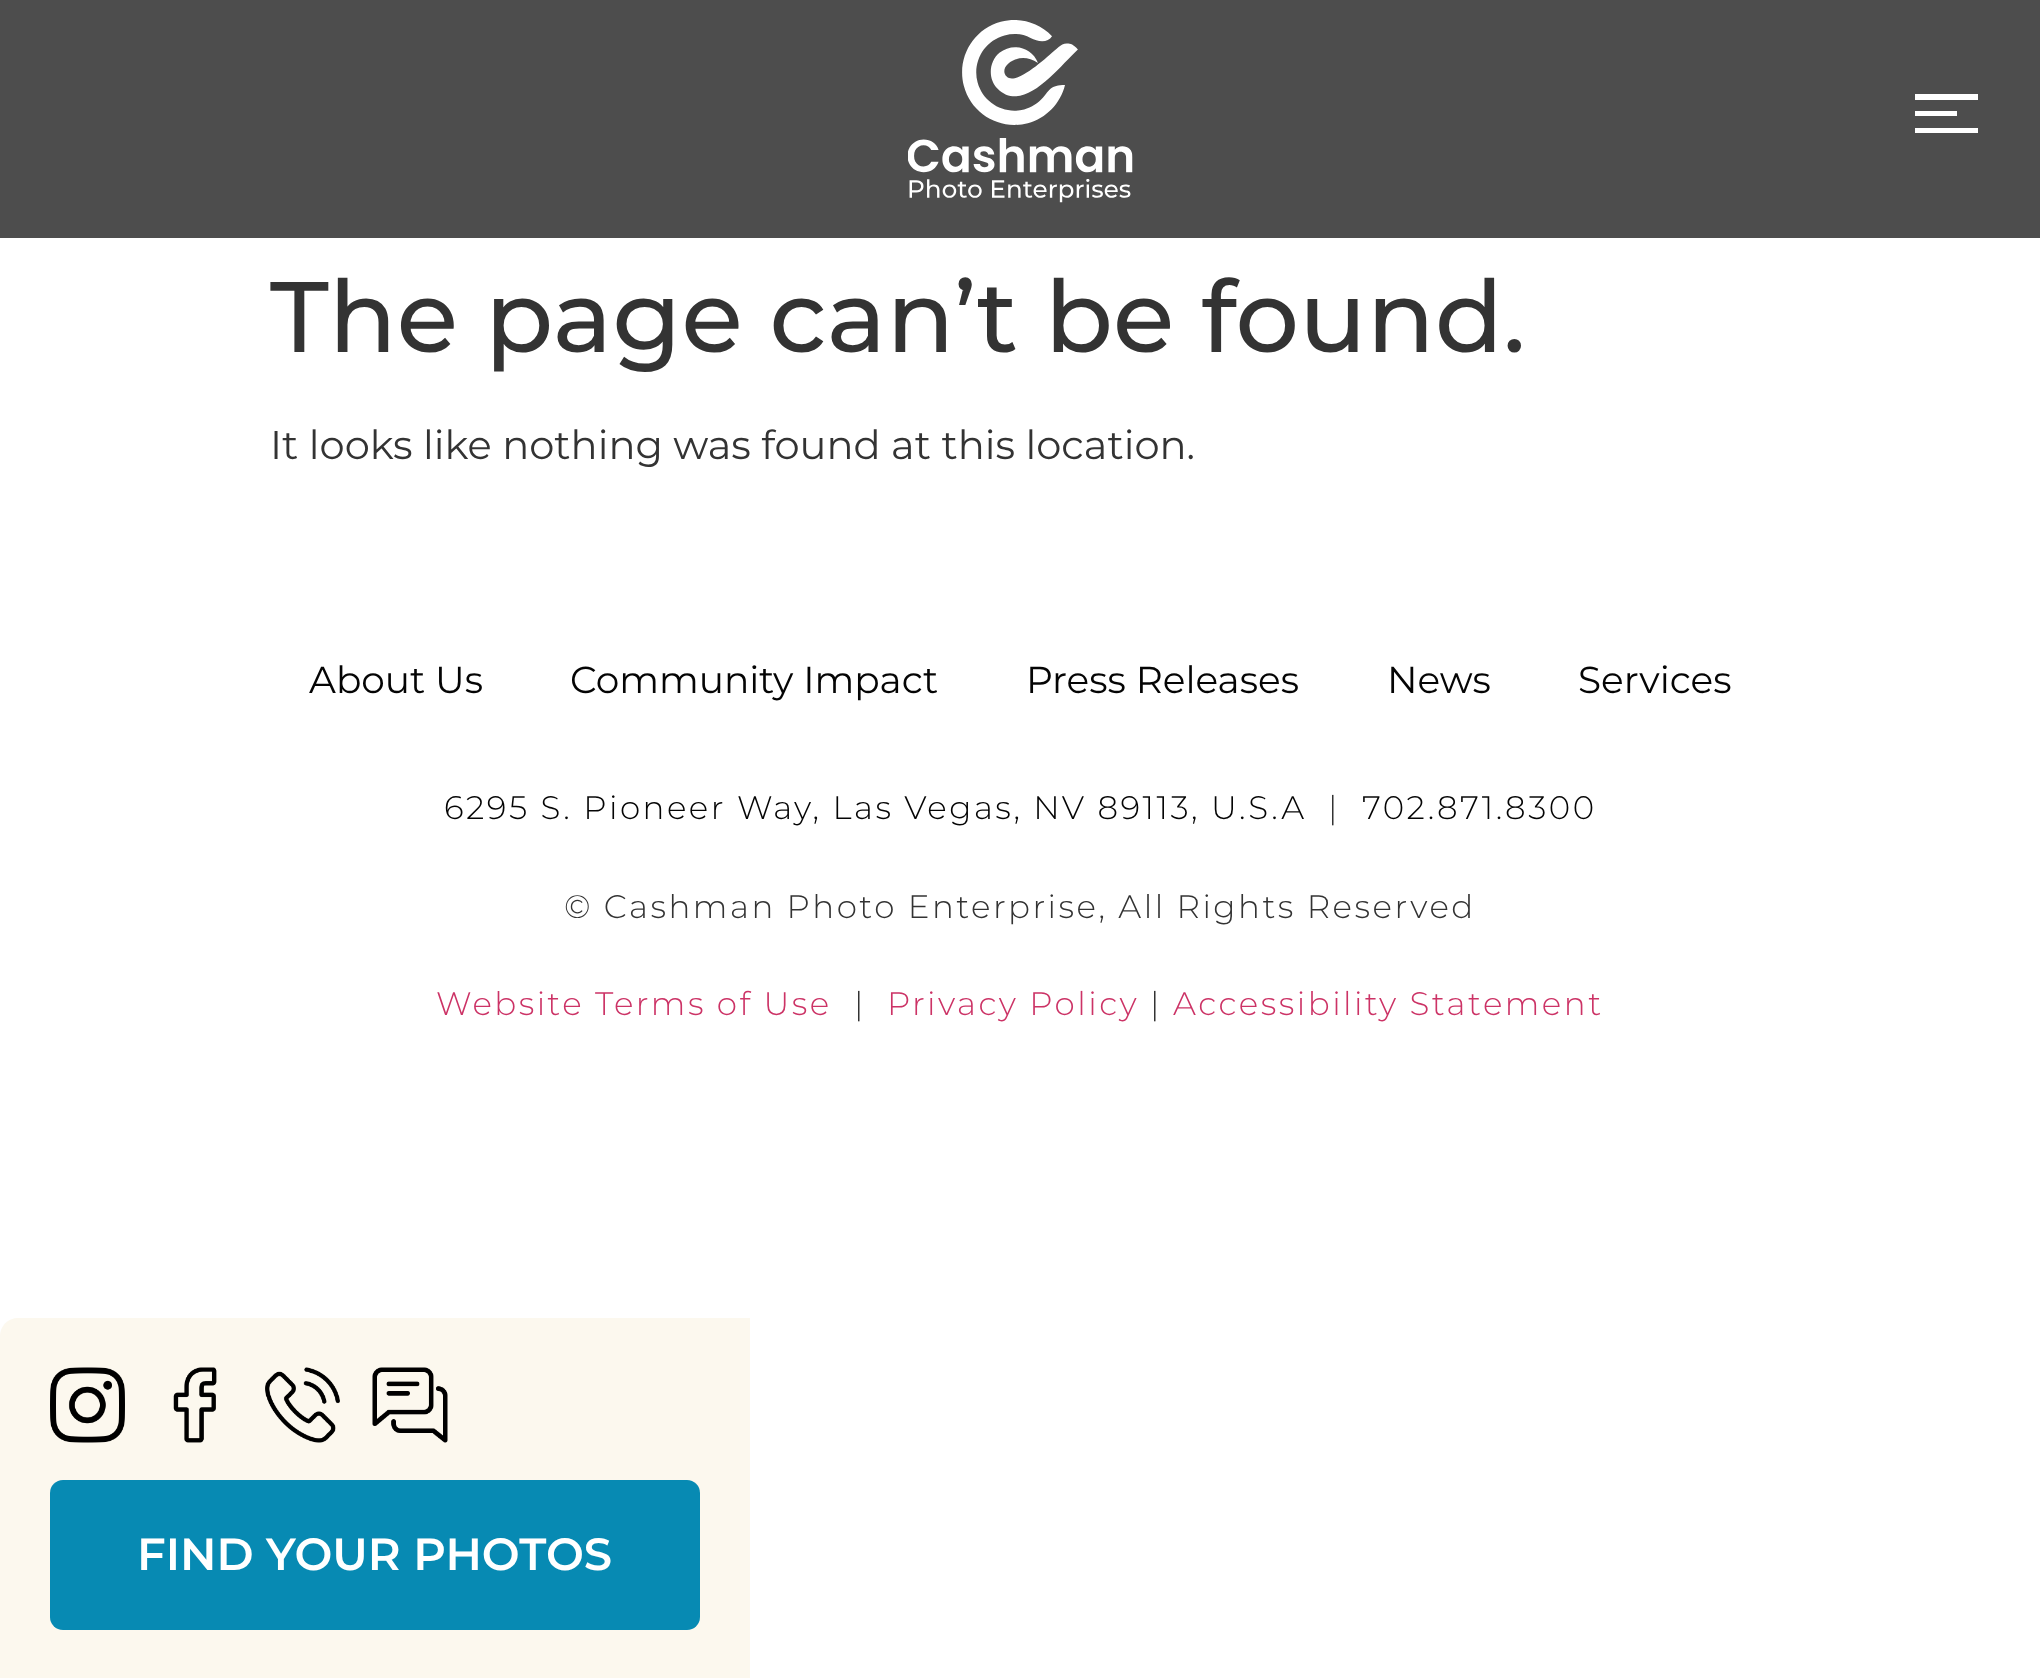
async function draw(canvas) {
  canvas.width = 2040
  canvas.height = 1678
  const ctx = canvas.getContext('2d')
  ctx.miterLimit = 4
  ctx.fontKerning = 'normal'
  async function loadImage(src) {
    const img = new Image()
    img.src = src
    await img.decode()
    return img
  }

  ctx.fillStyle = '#fff'
  ctx.fillRect(0, 0, 2040, 1678)
  ctx.fillStyle = '#4d4d4d'
  ctx.fillRect(0, 0, 2040, 238)
  ctx.drawImage(await loadImage('image0.png'), 908, 20, 225, 183)
  ctx.fillStyle = '#fff'
  ctx.fillRect(1915, 94, 63, 6)
  ctx.fillRect(1915, 111, 42, 5)
  ctx.fillRect(1915, 128, 63, 5)
  ctx.font = '500 100px Montserrat'
  ctx.fillStyle = '#333'
  ctx.fillText('The page can’t be found.', 270, 352)
  ctx.font = '40px Montserrat'
  ctx.fillText('It looks like nothing was found at this location.', 270, 459)
  ctx.font = '37.5px Montserrat'
  ctx.fillStyle = '#040404'
  ctx.fillText('About Us', 309, 693)
  ctx.fillText('Community Impact', 570, 693)
  ctx.fillText('Press Releases', 1026, 693)
  ctx.fillText('News', 1387, 693)
  ctx.fillText('Services', 1578, 693)
  ctx.letterSpacing = '2.5px'
  ctx.font = '300 32.5px Montserrat'
  ctx.fillText('6295 S. Pioneer Way, Las Vegas, NV 89113, U.S.A', 444, 819)
  ctx.fillStyle = '#333'
  ctx.fillText('|', 1328, 819)
  ctx.fillStyle = '#040404'
  ctx.fillText('702.871.8300', 1362, 819)
  ctx.fillStyle = '#333'
  ctx.fillText('© Cashman Photo Enterprise, All Rights Reserved', 564, 918)
  ctx.fillStyle = '#c36'
  ctx.fillText('Website Terms of Use', 436, 1015)
  ctx.fillStyle = '#333'
  ctx.fillText('|', 854, 1015)
  ctx.fillStyle = '#c36'
  ctx.fillText('Privacy Policy', 887, 1015)
  ctx.fillStyle = '#333'
  ctx.fillText('|', 1150, 1015)
  ctx.fillStyle = '#c36'
  ctx.fillText('Accessibility Statement', 1173, 1015)
  ctx.fillStyle = '#fcf8ee'
  ctx.beginPath()
  ctx.moveTo(18, 1318)
  ctx.lineTo(750, 1318)
  ctx.lineTo(750, 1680)
  ctx.lineTo(0, 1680)
  ctx.lineTo(0, 1336)
  ctx.bezierCurveTo(0, 1326, 8, 1318, 18, 1318)
  ctx.closePath()
  ctx.fill()
  ctx.drawImage(await loadImage('image1.png'), 50, 1367, 75, 76)
  ctx.drawImage(await loadImage('image2.png'), 173, 1367, 44, 76)
  ctx.drawImage(await loadImage('image3.png'), 265, 1367, 75, 76)
  ctx.drawImage(await loadImage('image4.png'), 372, 1367, 76, 76)
  ctx.fillStyle = '#078ab3'
  ctx.beginPath()
  ctx.roundRect(50, 1480, 650, 150, 13)
  ctx.fill()
  ctx.letterSpacing = '0px'
  ctx.font = '600 45px Montserrat'
  ctx.fillStyle = '#fff'
  ctx.fillText('FIND YOUR PHOTOS', 137, 1570)
}

draw(document.querySelector('canvas'))
